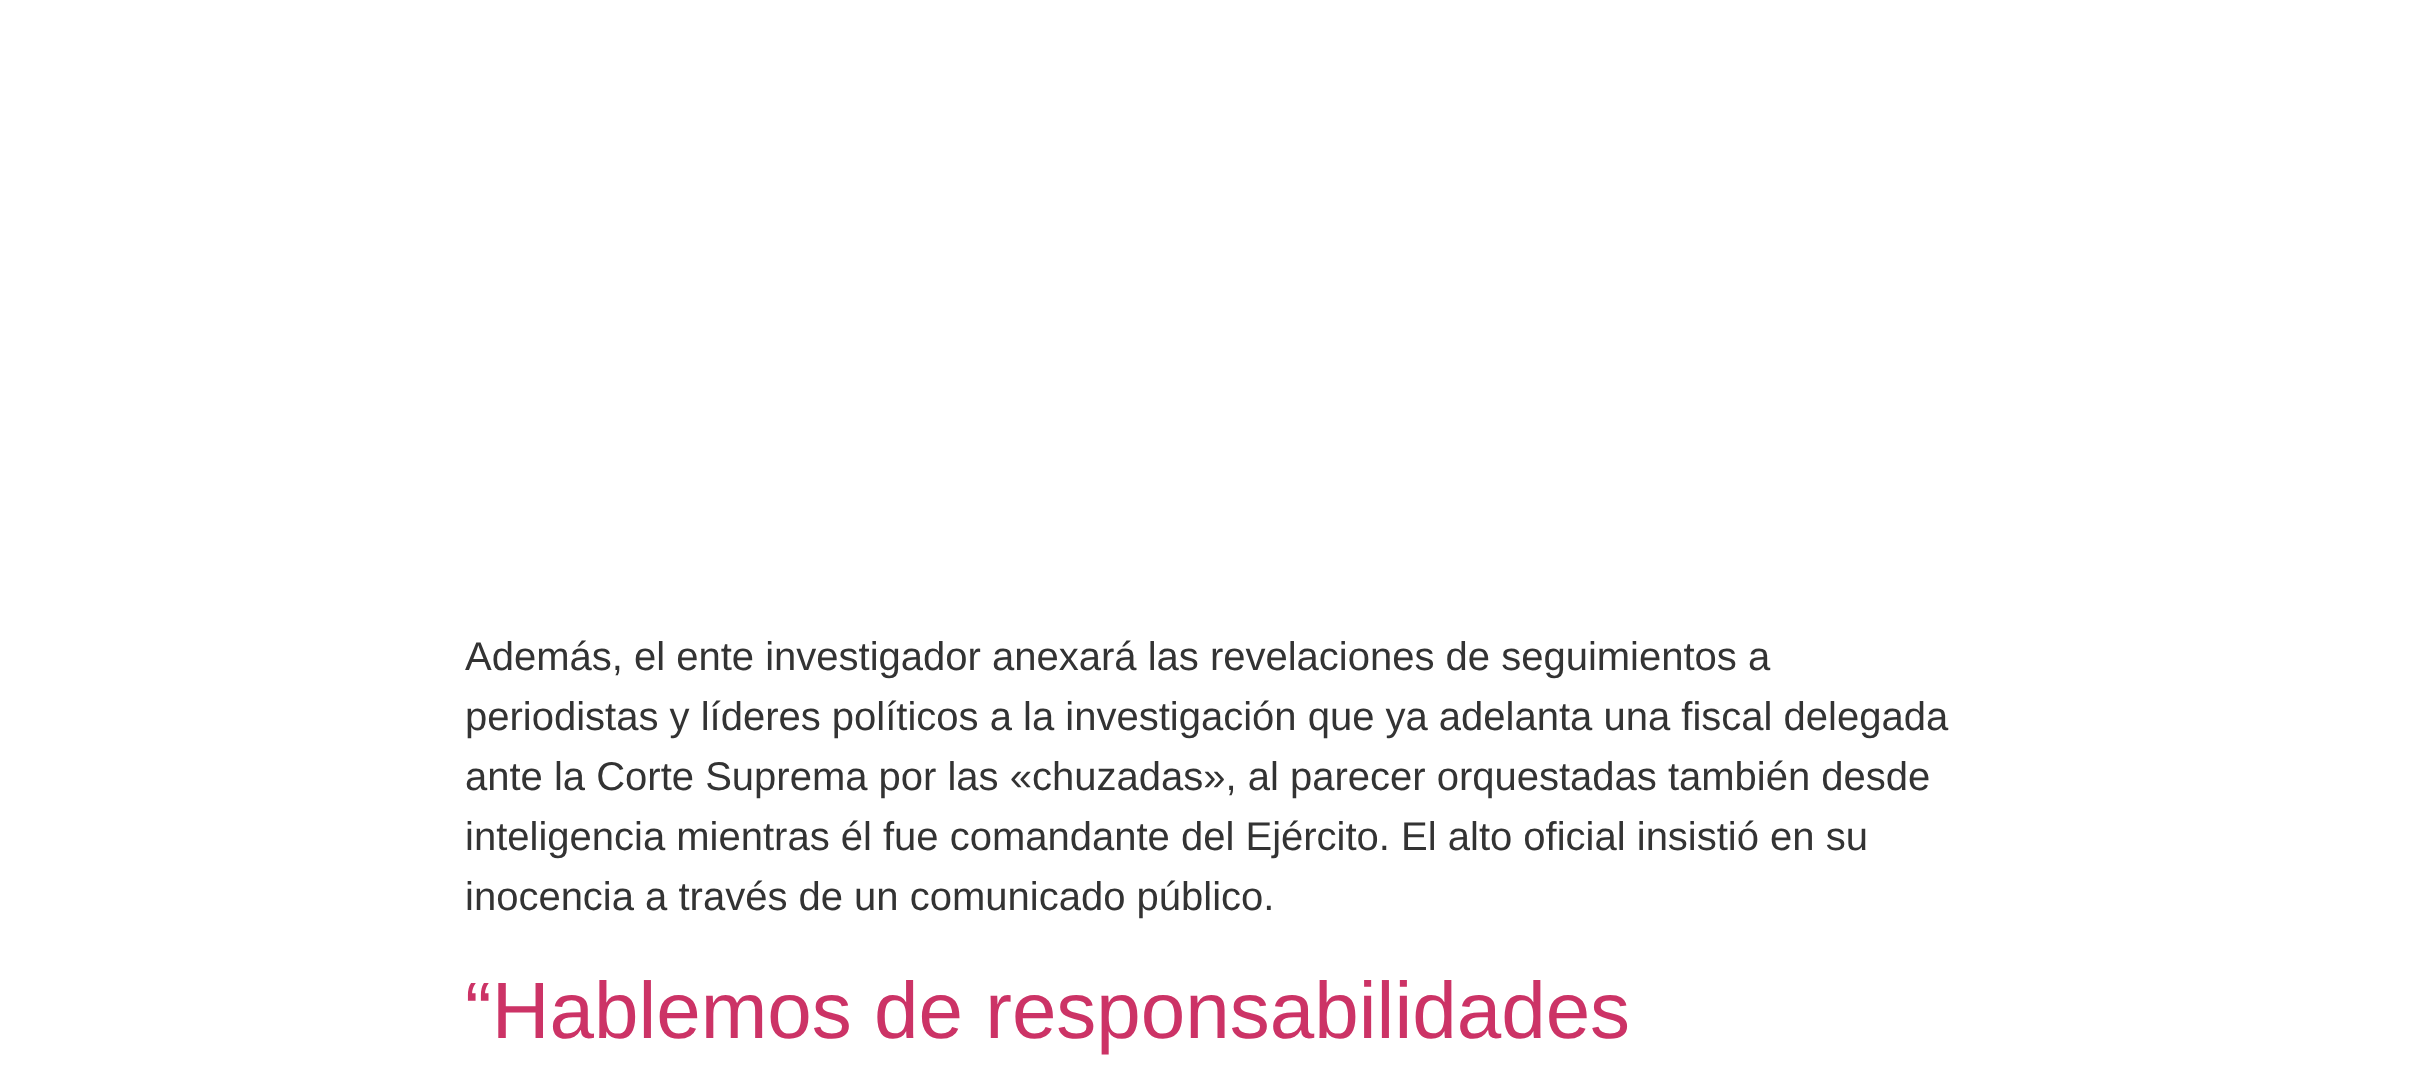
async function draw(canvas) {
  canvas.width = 2430
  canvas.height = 1091
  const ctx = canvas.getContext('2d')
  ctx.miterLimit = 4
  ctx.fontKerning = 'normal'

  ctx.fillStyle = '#fff'
  ctx.fillRect(0, 0, 2430, 1091)
  ctx.font = '40px Liberation Sans'
  ctx.fillStyle = '#333'
  ctx.fillText('Además, el ente investigador anexará las revelaciones de seguimientos a', 465, 670)
  ctx.fillText('periodistas y líderes políticos a la investigación que ya adelanta una fiscal delegada', 465, 730)
  ctx.fillText('ante la Corte Suprema por las «chuzadas», al parecer orquestadas también desde', 465, 790)
  ctx.fillText('inteligencia mientras él fue comandante del Ejército. El alto oficial insistió en su', 465, 850)
  ctx.fillText('inocencia a través de un comunicado público.', 465, 910)
  ctx.font = '80px Liberation Sans'
  ctx.fillStyle = '#c36'
  ctx.fillText('“Hablemos de responsabilidades', 465, 1038)
}

draw(document.querySelector('canvas'))
